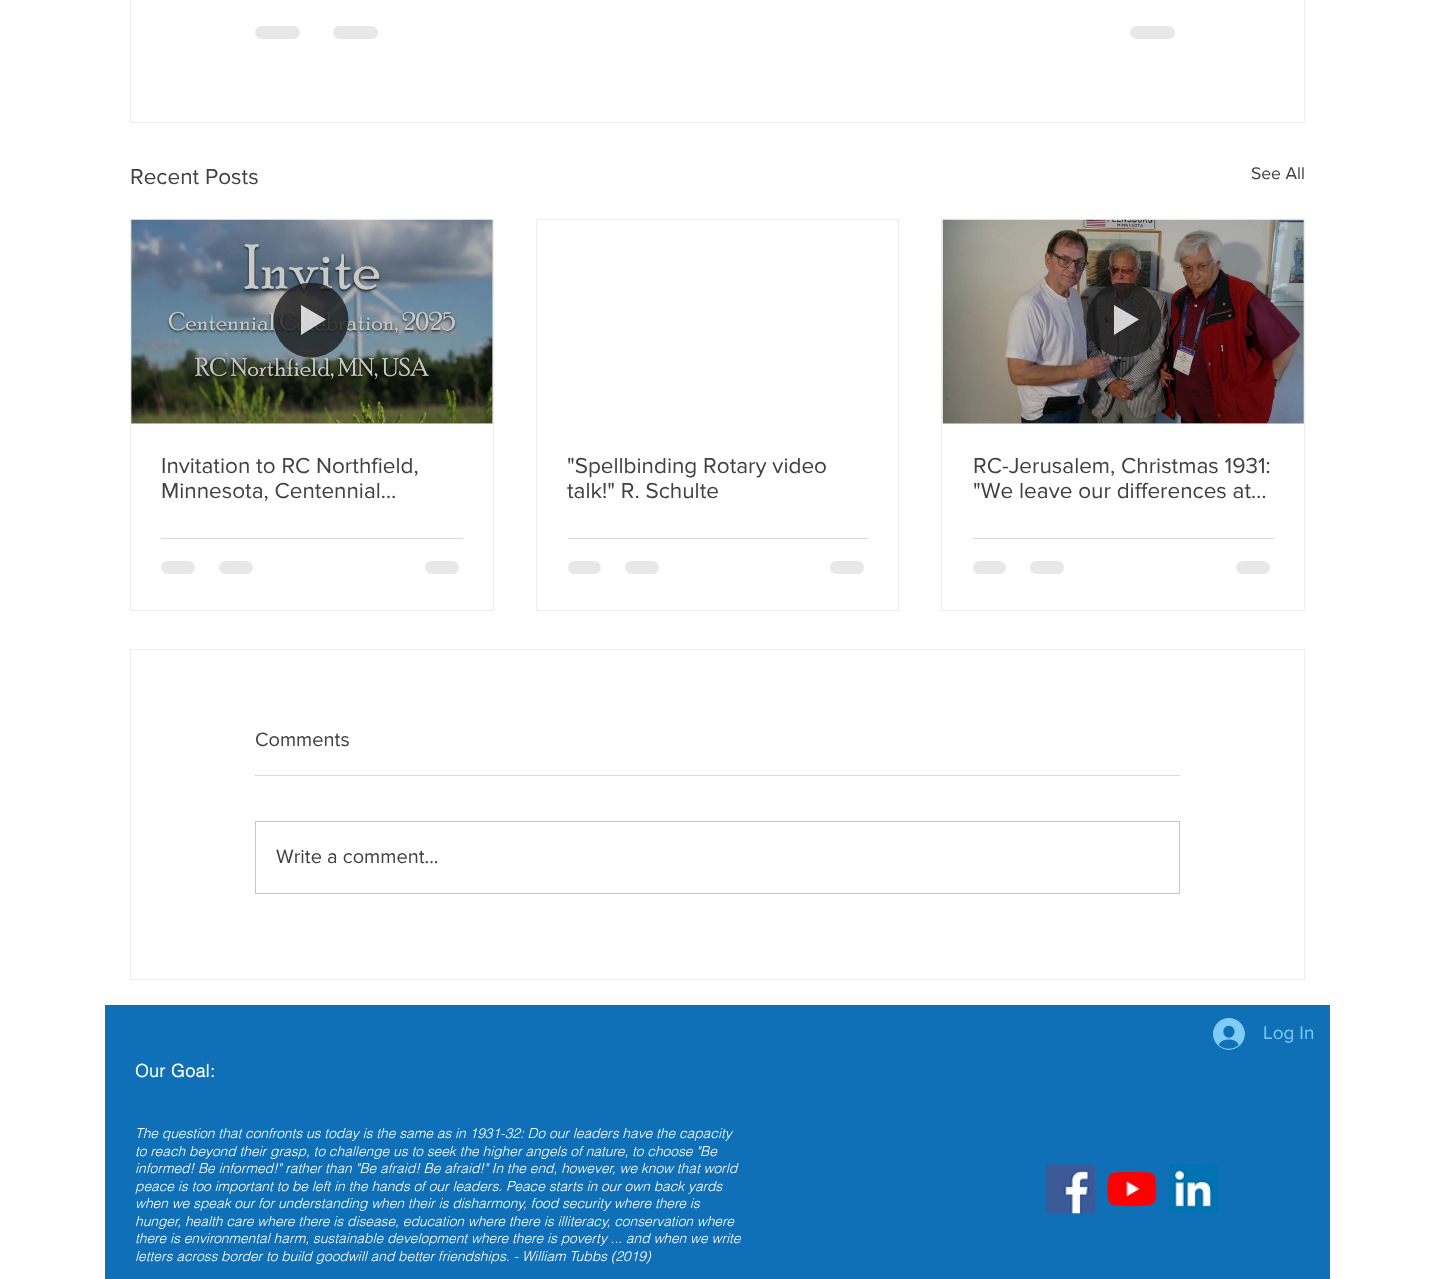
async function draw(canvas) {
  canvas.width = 1434
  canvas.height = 1279
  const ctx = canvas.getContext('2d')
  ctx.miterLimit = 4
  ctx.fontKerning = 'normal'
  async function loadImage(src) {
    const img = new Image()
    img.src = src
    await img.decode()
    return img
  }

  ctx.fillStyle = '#fff'
  ctx.fillRect(0, 0, 1434, 1279)
  ctx.fillStyle = '#ccc'
  ctx.fillRect(943, 220, 361, 204)
  ctx.fillRect(131, 220, 362, 204)
  ctx.strokeStyle = '#eeecec'
  ctx.strokeRect(130.5, -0.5, 1174, 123)
  ctx.fillStyle = '#e8e8e8'
  ctx.beginPath()
  ctx.roundRect(255, 26, 45, 13, 6.5)
  ctx.fill()
  ctx.beginPath()
  ctx.roundRect(333, 26, 45, 13, 6.5)
  ctx.fill()
  ctx.beginPath()
  ctx.roundRect(1130, 26, 45, 13, 6.5)
  ctx.fill()
  ctx.font = '22.5px "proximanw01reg"'
  ctx.fillStyle = '#414141'
  ctx.fillText('Recent Posts', 130, 184)
  ctx.font = '17.5px "proximanw01reg"'
  ctx.fillText('See All', 1251, 179)
  ctx.strokeRect(130.5, 219.5, 363, 391)
  ctx.drawImage(await loadImage('image0.png'), 131, 219, 362, 205)
  ctx.save()
  ctx.beginPath()
  ctx.rect(274, 283, 75, 75)
  ctx.clip()
  ctx.fillStyle = '#1a1a1acc'
  ctx.beginPath()
  ctx.arc(311, 320, 37.5, 0, 2 * Math.PI)
  ctx.fill()
  ctx.restore()
  ctx.fillStyle = '#ffffffcc'
  ctx.beginPath()
  ctx.moveTo(301, 305)
  ctx.lineTo(301, 335)
  ctx.lineTo(326, 319.5)
  ctx.closePath()
  ctx.fill()
  ctx.font = '22.5px "proximanw01reg"'
  ctx.fillStyle = '#414141'
  ctx.fillText('Invitation to RC Northfield,', 161, 473)
  ctx.fillText('Minnesota, Centennial…', 161, 498)
  ctx.fillStyle = '#d9d9d9'
  ctx.fillRect(161, 538, 302, 1)
  ctx.fillStyle = '#e8e8e8'
  ctx.beginPath()
  ctx.roundRect(161, 561, 34, 13, 6.5)
  ctx.fill()
  ctx.beginPath()
  ctx.roundRect(219, 561, 34, 13, 6.5)
  ctx.fill()
  ctx.beginPath()
  ctx.roundRect(425, 561, 34, 13, 6.5)
  ctx.fill()
  ctx.strokeRect(536.5, 219.5, 362, 391)
  ctx.fillStyle = '#414141'
  ctx.fillText('"Spellbinding Rotary video', 567, 473)
  ctx.fillText('talk!" R. Schulte', 567, 498)
  ctx.fillStyle = '#d9d9d9'
  ctx.fillRect(568, 538, 300, 1)
  ctx.fillStyle = '#e8e8e8'
  ctx.beginPath()
  ctx.roundRect(568, 561, 33, 13, 6.5)
  ctx.fill()
  ctx.beginPath()
  ctx.roundRect(625, 561, 34, 13, 6.5)
  ctx.fill()
  ctx.beginPath()
  ctx.roundRect(830, 561, 34, 13, 6.5)
  ctx.fill()
  ctx.strokeRect(941.5, 219.5, 363, 391)
  ctx.drawImage(await loadImage('image1.png'), 942, 219, 362, 205)
  ctx.save()
  ctx.beginPath()
  ctx.rect(1086, 283, 75, 75)
  ctx.clip()
  ctx.fillStyle = '#1a1a1acc'
  ctx.beginPath()
  ctx.arc(1124, 320, 37.5, 0, 2 * Math.PI)
  ctx.fill()
  ctx.restore()
  ctx.fillStyle = '#ffffffcc'
  ctx.beginPath()
  ctx.moveTo(1114, 305)
  ctx.lineTo(1114, 335)
  ctx.lineTo(1139, 319.5)
  ctx.closePath()
  ctx.fill()
  ctx.fillStyle = '#414141'
  ctx.fillText('RC-Jerusalem, Christmas 1931:', 973, 473)
  ctx.fillText('"We leave our differences at…', 973, 498)
  ctx.fillStyle = '#d9d9d9'
  ctx.fillRect(973, 538, 301, 1)
  ctx.fillStyle = '#e8e8e8'
  ctx.beginPath()
  ctx.roundRect(973, 561, 33, 13, 6.5)
  ctx.fill()
  ctx.beginPath()
  ctx.roundRect(1030, 561, 34, 13, 6.5)
  ctx.fill()
  ctx.beginPath()
  ctx.roundRect(1236, 561, 34, 13, 6.5)
  ctx.fill()
  ctx.strokeRect(130.5, 649.5, 1174, 330)
  ctx.font = '20px "proximanw01reg"'
  ctx.fillStyle = '#414141'
  ctx.fillText('Comments', 255, 746)
  ctx.fillStyle = '#d9d9d9'
  ctx.fillRect(255, 775, 925, 1)
  ctx.strokeStyle = '#c6c6c6'
  ctx.strokeRect(255.5, 821.5, 924, 72)
  ctx.fillStyle = '#414141'
  ctx.fillText('Write a comment...', 276, 863)
  ctx.fillStyle = '#0f70b7'
  ctx.fillRect(105, 1005, 1225, 274)
  ctx.drawImage(await loadImage('image2.png'), 1213, 1018, 32, 32)
  ctx.font = '19px "proximanw01reg"'
  ctx.fillStyle = '#7fccf7'
  ctx.fillText('Log In', 1263, 1039)
  ctx.letterSpacing = '0.5px'
  ctx.font = 'bold 17.5px helvetica'
  ctx.fillStyle = '#fff'
  ctx.fillText('Our Goal:', 135, 1077)
  ctx.letterSpacing = '0px'
  ctx.font = 'italic 300 13.75px helvetica'
  ctx.fillText('The question that confronts us today is the same as in 1931-32: Do our leaders have the capacity', 135, 1138)
  ctx.fillText('to reach beyond their grasp, to challenge us to seek the higher angels of nature, to choose "Be', 135, 1156)
  ctx.fillText('informed! Be informed!" rather than "Be afraid! Be afraid!" In the end, however, we know that world', 135, 1173)
  ctx.fillText('peace is too important to be left in the hands of our leaders. Peace starts in our own back yards', 135, 1191)
  ctx.fillText('when we speak our for understanding when their is disharmony, food security where there is', 135, 1208)
  ctx.fillText('hunger, health care where there is disease, education where there is illiteracy, conservation where', 135, 1226)
  ctx.fillText('there is environmental harm, sustainable development where there is poverty ... and when we write', 135, 1243)
  ctx.fillText('letters across border to build goodwill and better friendships. - William Tubbs (2019)', 135, 1261)
  ctx.drawImage(await loadImage('image3.png'), 1046, 1164, 49, 50)
  ctx.drawImage(await loadImage('image4.png'), 1107, 1170, 50, 37)
  ctx.drawImage(await loadImage('image5.png'), 1169, 1164, 49, 49)
}

draw(document.querySelector('canvas'))
